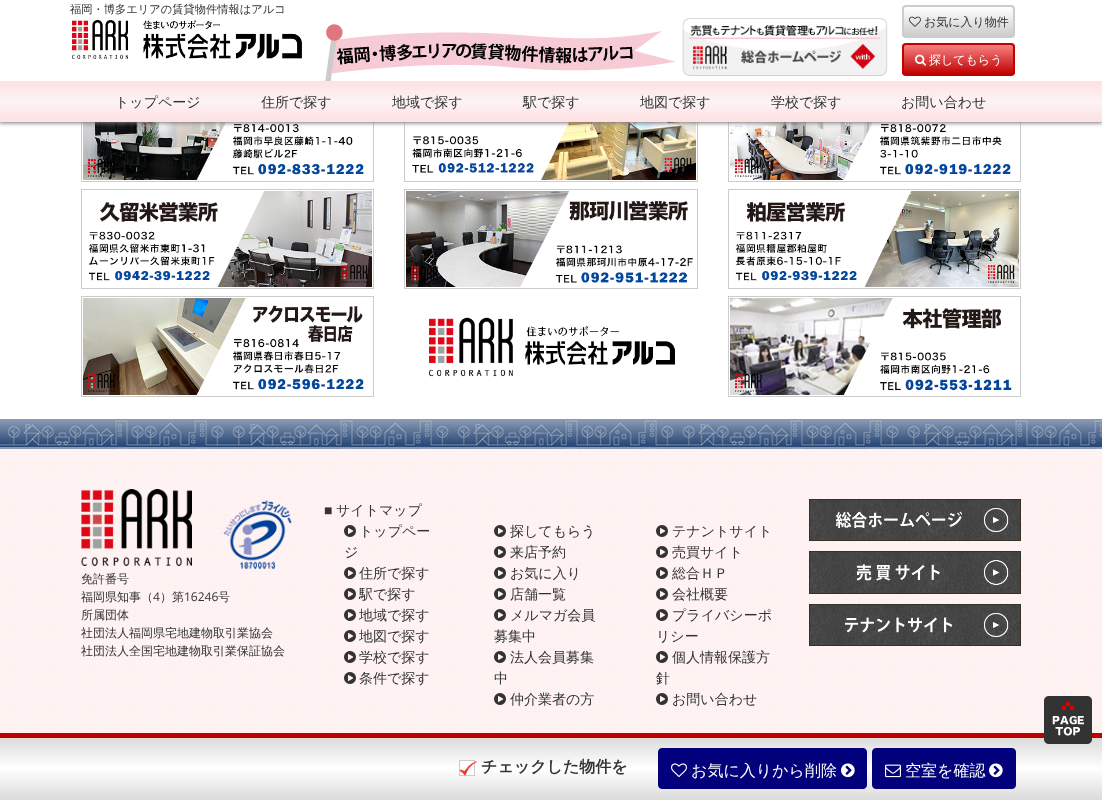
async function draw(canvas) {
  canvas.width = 1102
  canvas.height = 800
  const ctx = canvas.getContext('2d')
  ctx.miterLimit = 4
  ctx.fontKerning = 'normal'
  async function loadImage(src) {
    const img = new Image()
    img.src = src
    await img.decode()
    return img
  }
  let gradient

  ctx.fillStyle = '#fff'
  ctx.fillRect(0, 0, 1102, 800)
  ctx.strokeStyle = '#ccc'
  ctx.strokeRect(81.5, 81.5, 292, 100)
  ctx.drawImage(await loadImage('image5.png'), 83, 122, 284, 58)
  ctx.strokeRect(404.5, 81.5, 293, 100)
  ctx.drawImage(await loadImage('image6.png'), 412, 122, 284, 58)
  ctx.strokeRect(728.5, 81.5, 292, 100)
  ctx.drawImage(await loadImage('image7.png'), 730, 122, 281, 58)
  ctx.fillStyle = '#787878'
  ctx.filter = 'blur(2px)'
  ctx.beginPath()
  ctx.rect(-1, -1, 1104, 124)
  ctx.fill()
  ctx.filter = 'none'
  ctx.fillStyle = '#fff'
  ctx.fillRect(0, 0, 1102, 81)
  ctx.font = '500 11.25px WenQuanYi Zen Hei'
  ctx.fillStyle = '#333'
  ctx.fillText('福岡・博多エリアの賃貸物件情報はアルコ', 70, 13)
  ctx.drawImage(await loadImage('image0.png'), 72, 20, 230, 39)
  ctx.drawImage(await loadImage('image1.png'), 325, 24, 350, 57)
  ctx.drawImage(await loadImage('image2.png'), 682, 18, 206, 58)
  ctx.save()
  ctx.beginPath()
  ctx.roundRect(902, 5, 113, 33, 4)
  ctx.clip()
  gradient = ctx.createLinearGradient(959, 7, 959, 36)
  gradient.addColorStop(0, '#fff')
  gradient.addColorStop(1, '#ccc')
  ctx.fillStyle = gradient
  ctx.fillRect(902, 7, 113, 29)
  ctx.restore()
  ctx.beginPath()
  ctx.roundRect(903, 6, 111, 31, 3)
  ctx.lineWidth = 2
  ctx.stroke()
  ctx.drawImage(await loadImage('image3.png'), 909, 16, 12, 11)
  ctx.font = '500 12px WenQuanYi Zen Hei'
  ctx.fillText('お気に入り物件', 924, 26)
  ctx.save()
  ctx.beginPath()
  ctx.roundRect(902, 43, 113, 33, 4)
  ctx.clip()
  gradient = ctx.createLinearGradient(959, 45, 959, 74)
  gradient.addColorStop(0, '#f48281')
  gradient.addColorStop(1, '#c10000')
  ctx.fillStyle = gradient
  ctx.fillRect(902, 45, 113, 29)
  ctx.restore()
  ctx.beginPath()
  ctx.roundRect(903, 44, 111, 31, 3)
  ctx.strokeStyle = '#c10000'
  ctx.stroke()
  ctx.drawImage(await loadImage('image4.png'), 915, 54, 11, 12)
  ctx.fillStyle = '#fff'
  ctx.fillText('探してもらう', 929, 64)
  gradient = ctx.createLinearGradient(551, 81, 551, 122)
  gradient.addColorStop(0, '#fee0e2')
  gradient.addColorStop(0.5, '#fdf3f4')
  gradient.addColorStop(1, '#fee0e2')
  ctx.fillStyle = gradient
  ctx.fillRect(0, 81, 1102, 41)
  ctx.font = '500 14px WenQuanYi Zen Hei'
  ctx.fillStyle = '#333'
  ctx.fillText('トップページ', 115, 107)
  ctx.fillText('住所で探す', 261, 107)
  ctx.fillText('地域で探す', 392, 107)
  ctx.fillText('駅で探す', 523, 107)
  ctx.fillText('地図で探す', 640, 107)
  ctx.fillText('学校で探す', 771, 107)
  ctx.fillText('お問い合わせ', 901, 107)
  ctx.strokeStyle = '#ccc'
  ctx.lineWidth = 1
  ctx.strokeRect(81.5, 189.5, 292, 99)
  ctx.drawImage(await loadImage('image8.png'), 89, 191, 283, 96)
  ctx.strokeRect(404.5, 189.5, 293, 99)
  ctx.drawImage(await loadImage('image9.png'), 406, 191, 287, 96)
  ctx.strokeRect(728.5, 189.5, 292, 99)
  ctx.drawImage(await loadImage('image10.png'), 736, 191, 283, 96)
  ctx.strokeRect(81.5, 296.5, 292, 100)
  ctx.drawImage(await loadImage('image11.png'), 83, 298, 281, 97)
  ctx.drawImage(await loadImage('image12.png'), 429, 317, 246, 60)
  ctx.strokeRect(728.5, 296.5, 292, 100)
  ctx.drawImage(await loadImage('image13.png'), 730, 298, 282, 97)
  ctx.drawImage(await loadImage('image14.png'), 0, 419, 1102, 30)
  ctx.drawImage(await loadImage('image15.png'), 0, 449, 1102, 284)
  ctx.drawImage(await loadImage('image16.png'), 81, 489, 111, 77)
  ctx.drawImage(await loadImage('image17.png'), 223, 500, 69, 70)
  ctx.font = '500 12px WenQuanYi Zen Hei'
  ctx.fillText('免許番号', 81, 583)
  ctx.fillText('福岡県知事（', 81, 601)
  ctx.font = '12px Open Sans'
  ctx.fillText('4', 153, 601)
  ctx.font = '500 12px WenQuanYi Zen Hei'
  ctx.fillText('）第', 160, 601)
  ctx.font = '12px Open Sans'
  ctx.fillText('16246', 184, 601)
  ctx.font = '500 12px WenQuanYi Zen Hei'
  ctx.fillText('号', 218, 601)
  ctx.fillText('所属団体', 81, 619)
  ctx.fillText('社団法人福岡県宅地建物取引業協会', 81, 637)
  ctx.fillText('社団法人全国宅地建物取引業保証協会', 81, 655)
  ctx.font = '14px Liberation Sans'
  ctx.fillText('■', 324, 515)
  ctx.font = '500 14px WenQuanYi Zen Hei'
  ctx.fillText('サイトマップ', 336, 515)
  ctx.drawImage(await loadImage('image18.png'), 344, 525, 12, 12)
  ctx.fillText('トップペー', 359, 536)
  ctx.fillText('ジ', 344, 557)
  ctx.drawImage(await loadImage('image19.png'), 344, 567, 12, 12)
  ctx.fillText('住所で探す', 359, 578)
  ctx.drawImage(await loadImage('image20.png'), 344, 588, 12, 12)
  ctx.fillText('駅で探す', 359, 599)
  ctx.drawImage(await loadImage('image21.png'), 344, 609, 12, 12)
  ctx.fillText('地域で探す', 359, 620)
  ctx.drawImage(await loadImage('image18.png'), 344, 630, 12, 12)
  ctx.fillText('地図で探す', 359, 641)
  ctx.drawImage(await loadImage('image22.png'), 344, 651, 12, 12)
  ctx.fillText('学校で探す', 359, 662)
  ctx.drawImage(await loadImage('image19.png'), 344, 672, 12, 12)
  ctx.fillText('条件で探す', 359, 683)
  ctx.drawImage(await loadImage('image18.png'), 494, 525, 12, 12)
  ctx.fillText('探してもらう', 510, 536)
  ctx.drawImage(await loadImage('image22.png'), 494, 546, 12, 12)
  ctx.fillText('来店予約', 510, 557)
  ctx.drawImage(await loadImage('image19.png'), 494, 567, 12, 12)
  ctx.fillText('お気に入り', 510, 578)
  ctx.drawImage(await loadImage('image20.png'), 494, 588, 12, 12)
  ctx.fillText('店舗一覧', 510, 599)
  ctx.drawImage(await loadImage('image21.png'), 494, 609, 12, 12)
  ctx.fillText('メルマガ会員', 510, 620)
  ctx.fillText('募集中', 494, 641)
  ctx.drawImage(await loadImage('image22.png'), 494, 651, 12, 12)
  ctx.fillText('法人会員募集', 510, 662)
  ctx.fillText('中', 494, 683)
  ctx.drawImage(await loadImage('image20.png'), 494, 693, 12, 12)
  ctx.fillText('仲介業者の方', 510, 704)
  ctx.drawImage(await loadImage('image23.png'), 656, 525, 12, 12)
  ctx.fillText('テナントサイト', 672, 536)
  ctx.drawImage(await loadImage('image24.png'), 656, 546, 12, 12)
  ctx.fillText('売買サイト', 672, 557)
  ctx.drawImage(await loadImage('image25.png'), 656, 567, 12, 12)
  ctx.fillText('総合ＨＰ', 672, 578)
  ctx.drawImage(await loadImage('image26.png'), 656, 588, 12, 12)
  ctx.fillText('会社概要', 672, 599)
  ctx.drawImage(await loadImage('image27.png'), 656, 609, 12, 12)
  ctx.fillText('プライバシーポ', 672, 620)
  ctx.fillText('リシー', 656, 641)
  ctx.drawImage(await loadImage('image24.png'), 656, 651, 12, 12)
  ctx.fillText('個人情報保護方', 672, 662)
  ctx.fillText('針', 656, 683)
  ctx.drawImage(await loadImage('image26.png'), 656, 693, 12, 12)
  ctx.fillText('お問い合わせ', 672, 704)
  ctx.drawImage(await loadImage('image28.png'), 809, 499, 212, 42)
  ctx.drawImage(await loadImage('image29.png'), 809, 551, 212, 43)
  ctx.drawImage(await loadImage('image30.png'), 809, 604, 212, 42)
  gradient = ctx.createLinearGradient(551, 738, 551, 799)
  gradient.addColorStop(0, '#dcdcdc')
  gradient.addColorStop(0.5, '#fff')
  gradient.addColorStop(1, '#dcdcdc')
  ctx.fillStyle = gradient
  ctx.fillRect(0, 738, 1102, 61)
  ctx.fillStyle = '#c10000'
  ctx.fillRect(0, 733, 1102, 5)
  ctx.drawImage(await loadImage('image31.png'), 1044, 696, 48, 48)
  gradient = ctx.createLinearGradient(551, 799, 551, 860)
  gradient.addColorStop(0, '#dcdcdc')
  gradient.addColorStop(0.5, '#fff')
  gradient.addColorStop(1, '#dcdcdc')
  ctx.fillStyle = gradient
  ctx.fillRect(0, 799, 1102, 1)
  ctx.drawImage(await loadImage('image32.png'), 459, 760, 18, 16)
  ctx.font = 'bold 16px WenQuanYi Zen Hei'
  ctx.fillStyle = '#333'
  ctx.fillText('チェックした物件を', 481, 772)
  ctx.fillStyle = '#02007b'
  ctx.beginPath()
  ctx.roundRect(658.5, 748.5, 208, 40, 3.5)
  ctx.fill()
  ctx.strokeStyle = '#02007b'
  ctx.stroke()
  ctx.drawImage(await loadImage('image33.png'), 671, 763, 16, 15)
  ctx.font = '500 16px WenQuanYi Zen Hei'
  ctx.fillStyle = '#fff'
  ctx.fillText('お気に入りから削除', 691, 776)
  ctx.drawImage(await loadImage('image34.png'), 841, 763, 14, 15)
  ctx.fillStyle = '#02007b'
  ctx.beginPath()
  ctx.roundRect(872.5, 748.5, 143, 40, 3.5)
  ctx.fill()
  ctx.stroke()
  ctx.drawImage(await loadImage('image35.png'), 885, 764, 16, 14)
  ctx.fillStyle = '#fff'
  ctx.fillText('空室を確認', 905, 776)
  ctx.drawImage(await loadImage('image34.png'), 989, 763, 14, 15)
}

draw(document.querySelector('canvas'))
